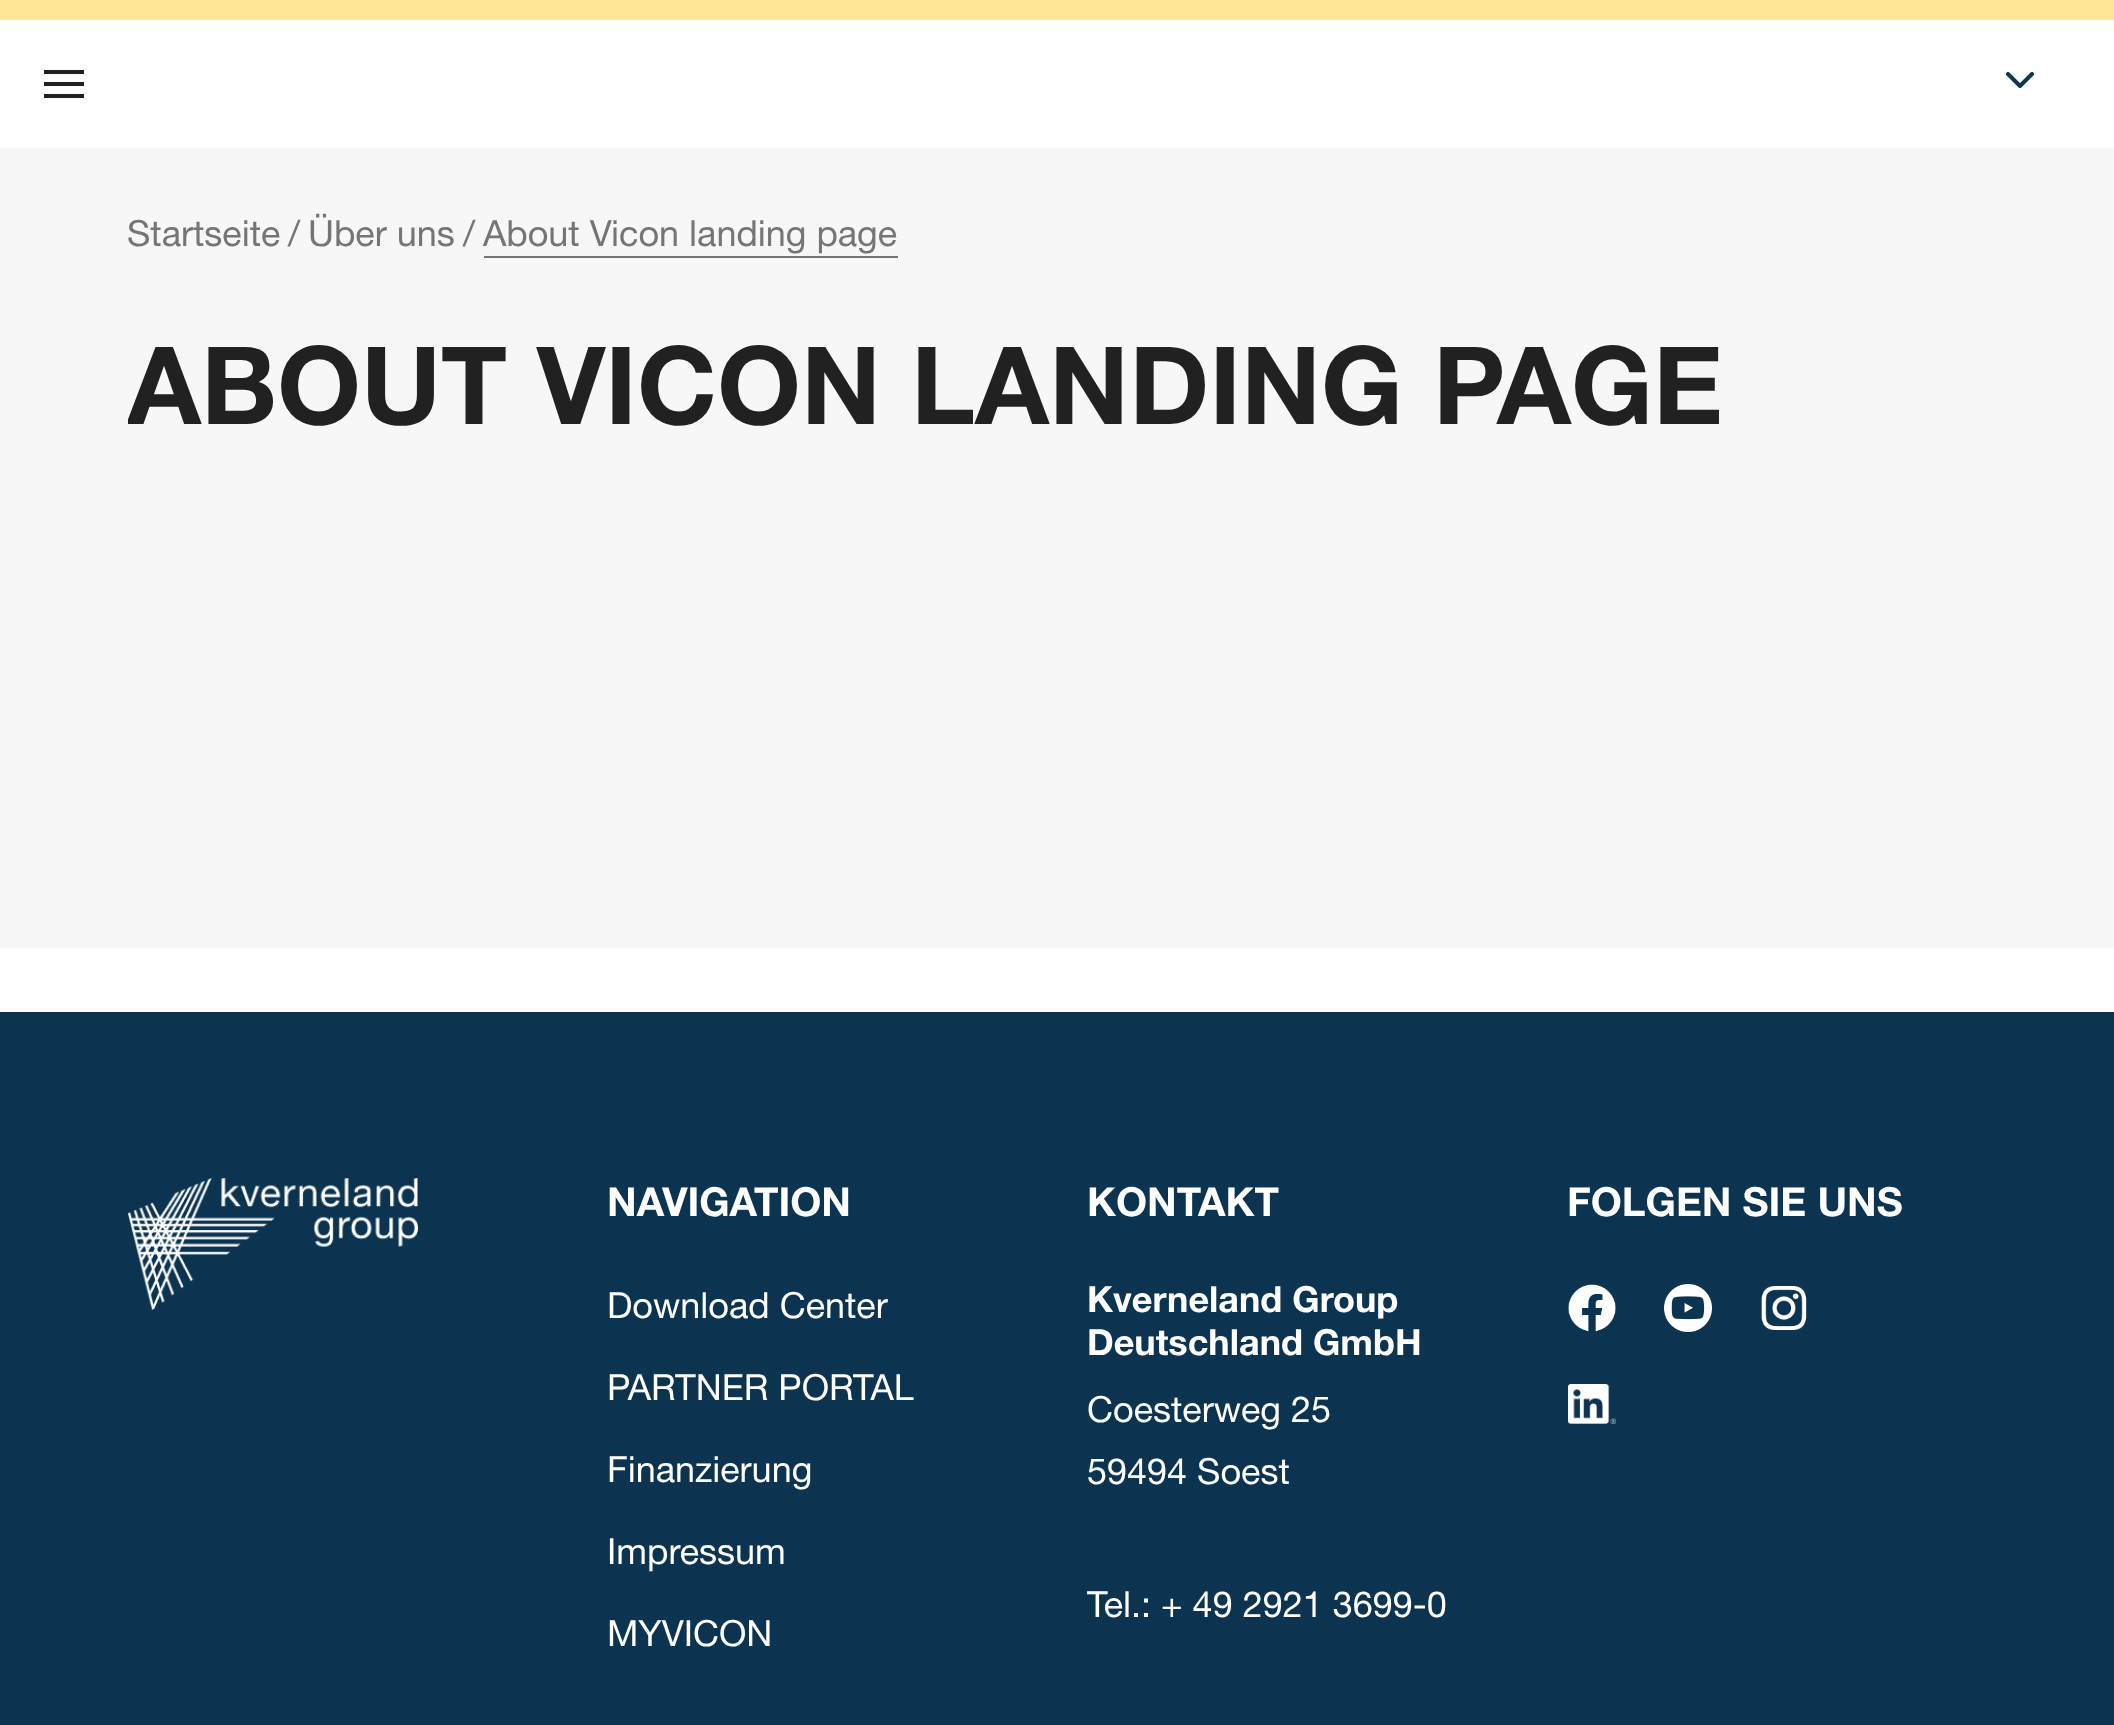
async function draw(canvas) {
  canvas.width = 2114
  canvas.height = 1725
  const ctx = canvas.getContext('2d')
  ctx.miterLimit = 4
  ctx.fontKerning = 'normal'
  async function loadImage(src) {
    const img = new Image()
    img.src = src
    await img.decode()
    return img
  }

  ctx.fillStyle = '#fff'
  ctx.fillRect(0, 0, 2114, 1725)
  ctx.fillStyle = '#ffe596'
  ctx.fillRect(0, 0, 2114, 20)
  ctx.fillStyle = '#212121'
  ctx.fillRect(44, 82, 40, 4)
  ctx.fillRect(44, 70, 40, 4)
  ctx.fillRect(44, 94, 40, 4)
  ctx.drawImage(await loadImage('image0.png'), 2006, 72, 28, 16)
  ctx.fillStyle = '#f7f7f7'
  ctx.fillRect(0, 148, 2114, 800)
  ctx.font = '36px Helvetica Neue'
  ctx.fillStyle = '#757575'
  ctx.fillText('Startseite', 127, 246)
  ctx.fillText('/', 288, 246)
  ctx.fillText('Über uns', 308, 246)
  ctx.fillText('/', 463, 246)
  ctx.fillText('About Vicon landing page', 483, 246)
  ctx.fillRect(484, 256, 414, 2)
  ctx.save()
  ctx.beginPath()
  ctx.rect(128, 318, 1860, 136)
  ctx.clip()
  ctx.font = 'bold 108px Helvetica Neue'
  ctx.fillStyle = '#212121'
  ctx.fillText('ABOUT VICON LANDING PAGE', 127, 424)
  ctx.restore()
  ctx.fillStyle = '#0c3451'
  ctx.fillRect(0, 1012, 2114, 713)
  ctx.drawImage(await loadImage('image1.png'), 128, 1178, 290, 132)
  ctx.font = 'bold 40px Helvetica Neue'
  ctx.fillStyle = '#fff'
  ctx.fillText('NAVIGATION', 607, 1216)
  ctx.font = '36px Helvetica Neue'
  ctx.fillText('Download Center', 607, 1318)
  ctx.fillText('PARTNER PORTAL', 607, 1400)
  ctx.fillText('Finanzierung', 607, 1482)
  ctx.fillText('Impressum', 607, 1564)
  ctx.fillText('MYVICON', 607, 1646)
  ctx.font = 'bold 40px Helvetica Neue'
  ctx.fillText('KONTAKT', 1087, 1216)
  ctx.font = 'bold 36px Helvetica Neue'
  ctx.fillText('Kverneland Group', 1087, 1312)
  ctx.fillText('Deutschland GmbH', 1087, 1355)
  ctx.font = '36px Helvetica Neue'
  ctx.fillText('Coesterweg 25', 1087, 1422)
  ctx.fillText('59494 Soest', 1087, 1484)
  ctx.fillText('Tel.: + 49 2921 3699-0', 1087, 1617)
  ctx.font = 'bold 40px Helvetica Neue'
  ctx.fillText('FOLGEN SIE UNS', 1567, 1216)
  ctx.drawImage(await loadImage('image2.png'), 1568, 1284, 48, 48)
  ctx.drawImage(await loadImage('image3.png'), 1664, 1284, 48, 48)
  ctx.drawImage(await loadImage('image4.png'), 1761, 1286, 46, 44)
  ctx.drawImage(await loadImage('image5.png'), 1568, 1384, 48, 40)
}

draw(document.querySelector('canvas'))
